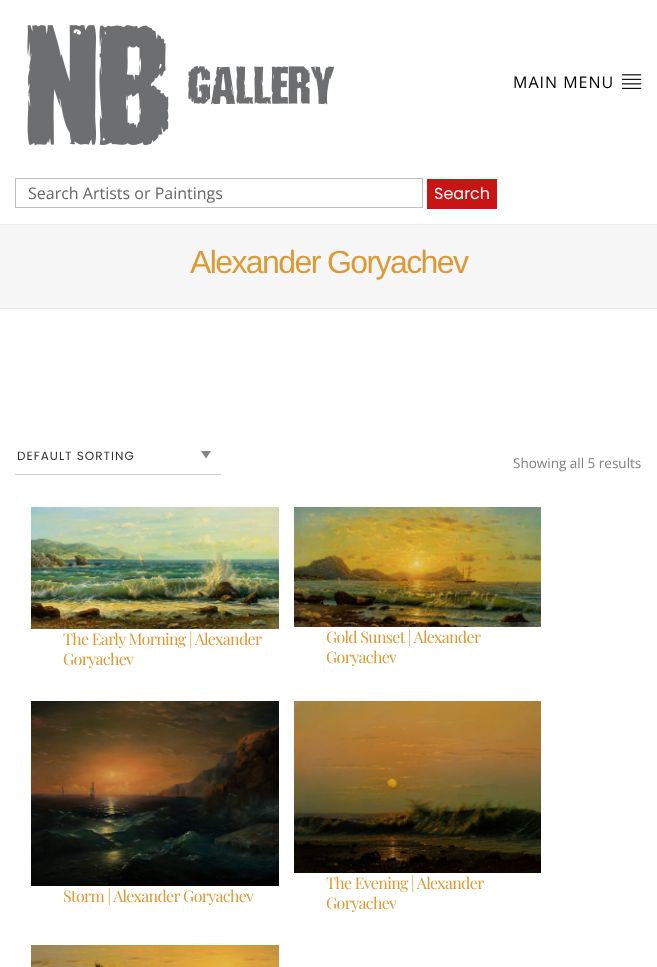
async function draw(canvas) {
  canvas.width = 657
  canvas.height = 967
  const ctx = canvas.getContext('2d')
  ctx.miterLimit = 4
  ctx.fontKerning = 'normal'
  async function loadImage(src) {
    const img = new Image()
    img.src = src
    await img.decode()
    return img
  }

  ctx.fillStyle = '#fff'
  ctx.fillRect(0, 0, 657, 967)
  ctx.drawImage(await loadImage('image0.png'), 27, 25, 308, 121)
  ctx.letterSpacing = '1px'
  ctx.font = '16px Open Sans'
  ctx.fillStyle = '#000'
  ctx.fillText('MAIN MENU', 513, 88)
  ctx.drawImage(await loadImage('image1.png'), 622, 74, 20, 15)
  ctx.strokeStyle = '#bfbfbf'
  ctx.strokeRect(15.5, 178.5, 407, 29)
  ctx.letterSpacing = '0px'
  ctx.fillStyle = '#666'
  ctx.fillText('Search Artists or Paintings', 28, 199)
  ctx.fillStyle = '#c71414'
  ctx.fillRect(427, 179, 70, 30)
  ctx.font = '16px Poppins'
  ctx.fillStyle = '#fff'
  ctx.fillText('Search', 434, 199)
  ctx.fillStyle = '#ececec'
  ctx.fillRect(0, 224, 657, 1)
  ctx.fillStyle = '#f6f6f6'
  ctx.fillRect(0, 225, 657, 83)
  ctx.letterSpacing = '-1.6px'
  ctx.font = '32px Liberation Sans'
  ctx.fillStyle = '#d93'
  ctx.fillText('Alexander Goryachev', 190, 273)
  ctx.fillStyle = '#eaeaea'
  ctx.fillRect(0, 308, 657, 1)
  ctx.fillStyle = '#858585'
  ctx.beginPath()
  ctx.moveTo(201, 451)
  ctx.lineTo(211, 451)
  ctx.lineTo(206, 458.5)
  ctx.closePath()
  ctx.fill('evenodd')
  ctx.fillStyle = '#ccc'
  ctx.fillRect(15, 474, 206, 1)
  ctx.letterSpacing = '1px'
  ctx.font = '12px Poppins'
  ctx.fillStyle = '#333'
  ctx.fillText('DEFAULT SORTING', 17, 460)
  ctx.letterSpacing = '0px'
  ctx.font = '13.5px Open Sans'
  ctx.fillStyle = '#808080'
  ctx.fillText('Showing all 5 results', 513, 468)
  ctx.drawImage(await loadImage('image2.png'), 31, 507, 248, 122)
  ctx.letterSpacing = '-0.65px'
  ctx.font = '16px Playfair Display'
  ctx.fillStyle = '#d93'
  ctx.fillText('The Early Morning | Alexander', 63, 645)
  ctx.fillText('Goryachev', 63, 665)
  ctx.drawImage(await loadImage('image3.png'), 294, 507, 247, 120)
  ctx.fillText('Gold Sunset | Alexander', 326, 643)
  ctx.fillText('Goryachev', 326, 663)
  ctx.drawImage(await loadImage('image4.png'), 31, 701, 248, 185)
  ctx.fillText('Storm | Alexander Goryachev', 63, 902)
  ctx.drawImage(await loadImage('image5.png'), 294, 701, 247, 172)
  ctx.fillText('The Evening | Alexander', 326, 889)
  ctx.fillText('Goryachev', 326, 909)
  ctx.drawImage(await loadImage('image6.png'), 31, 945, 248, 22)
}

draw(document.querySelector('canvas'))
